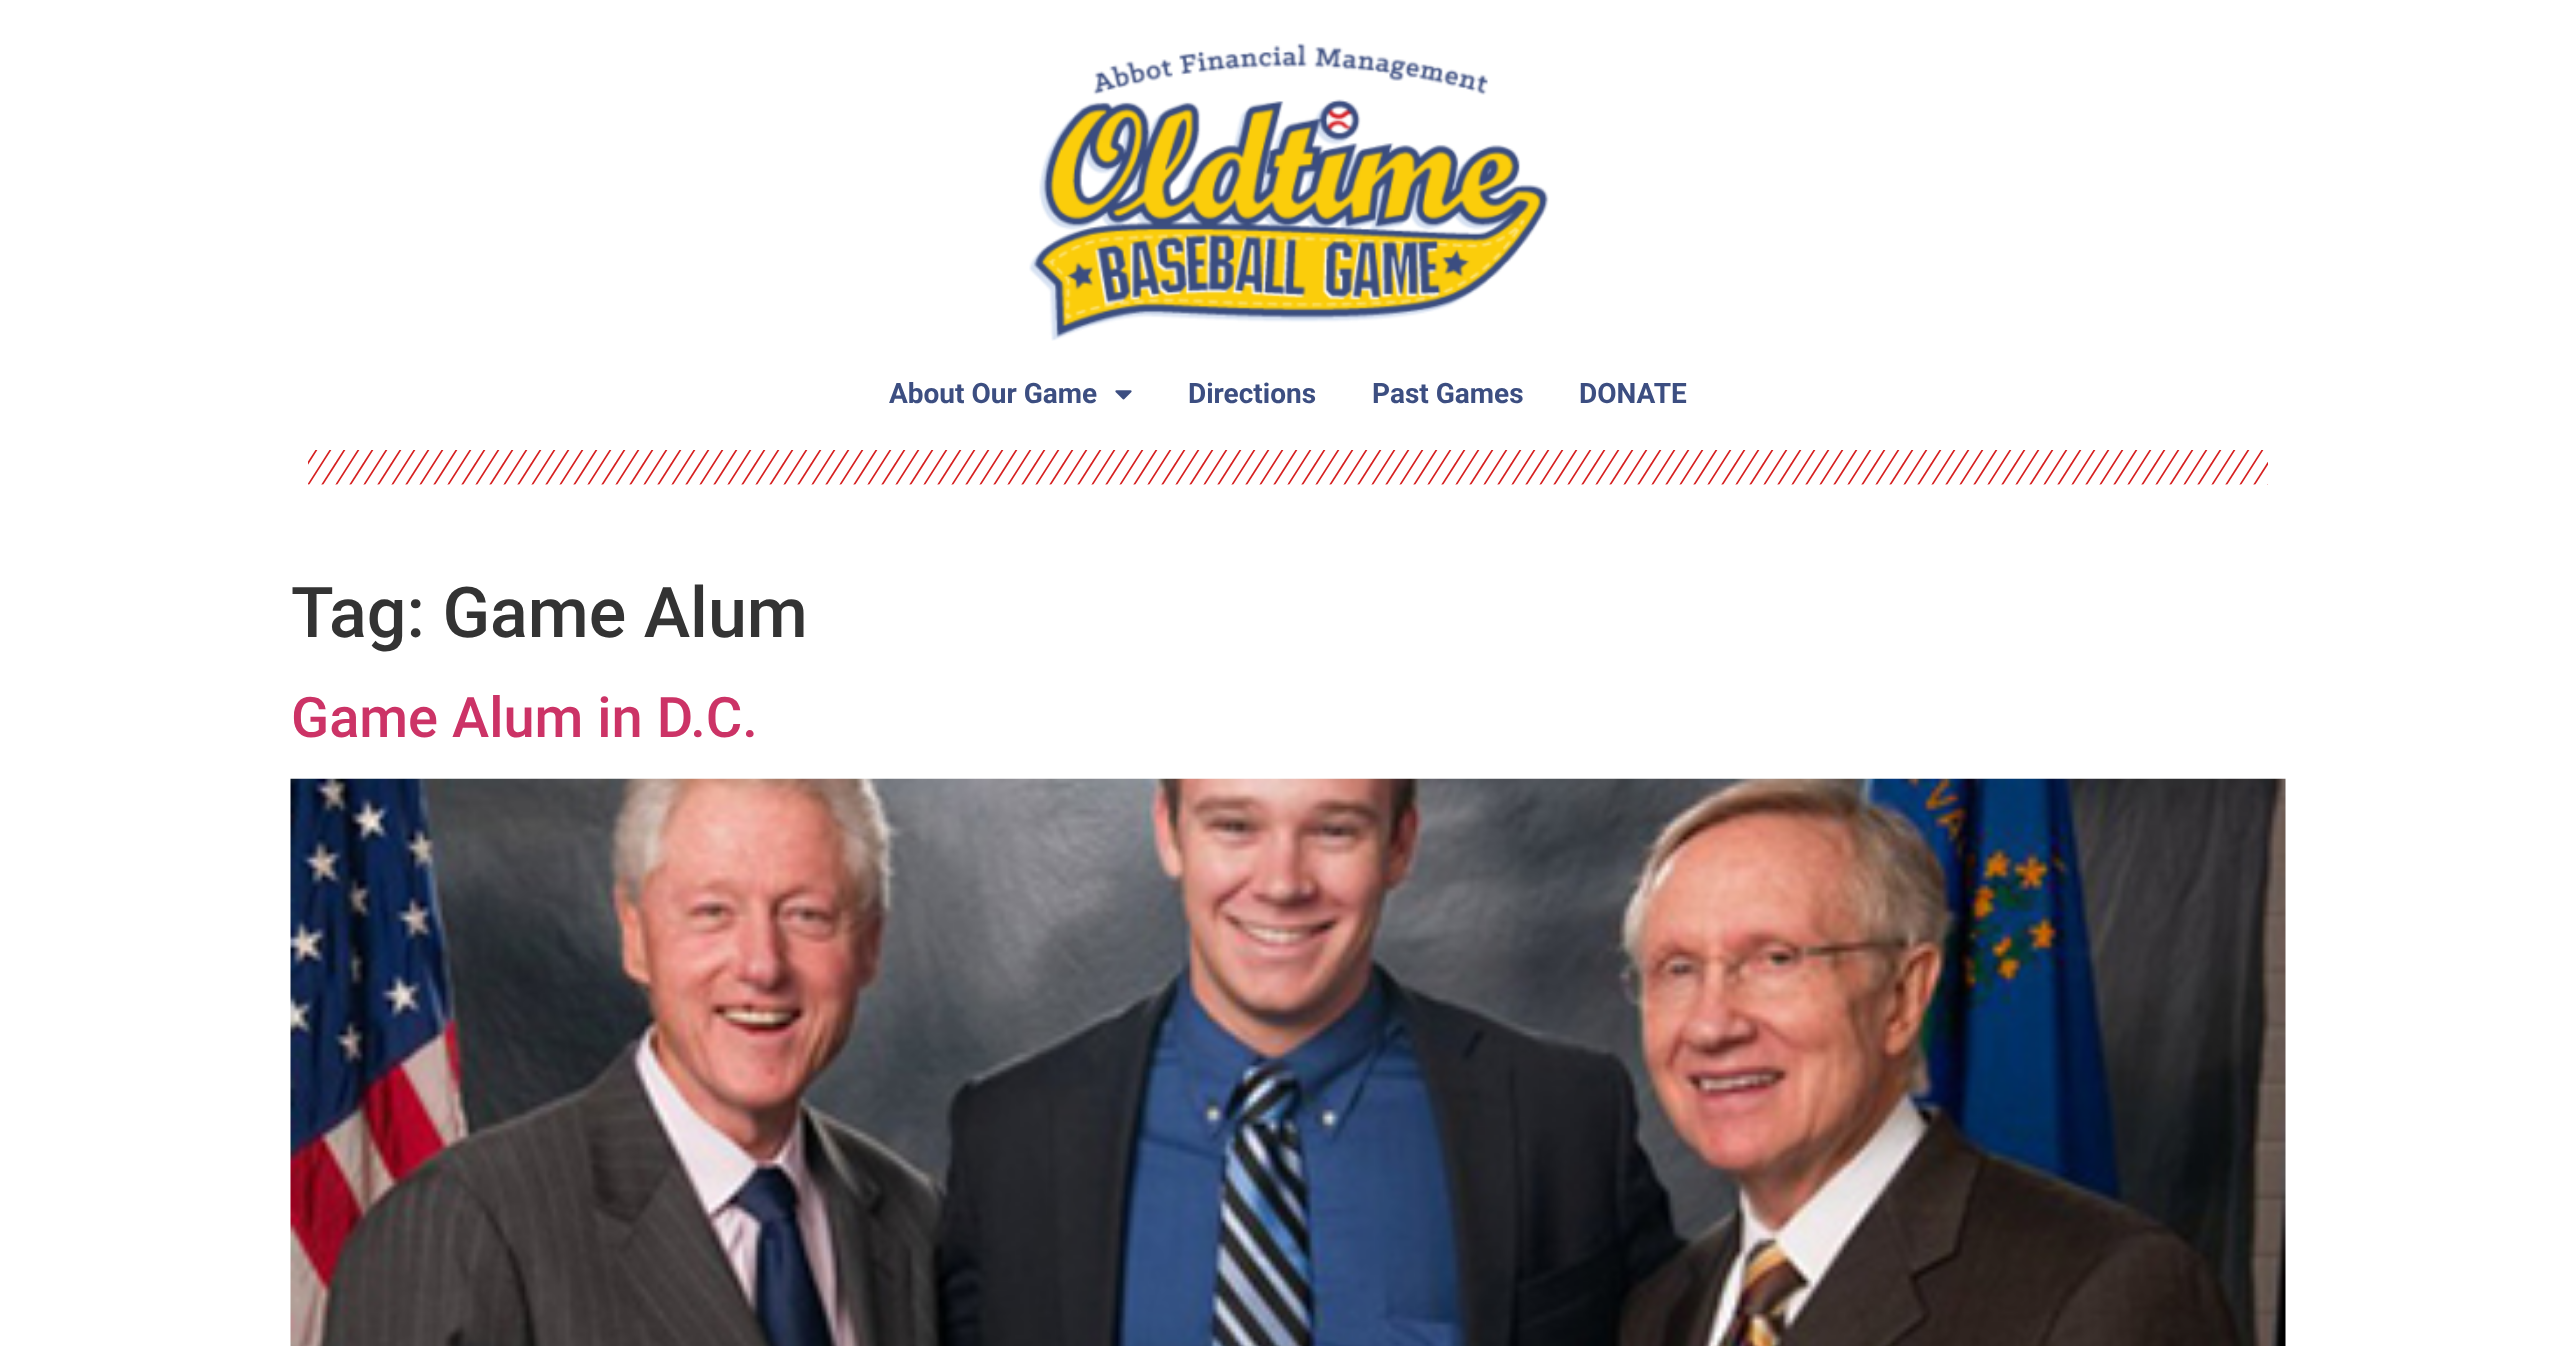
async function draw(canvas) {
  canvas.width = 2575
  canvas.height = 1346
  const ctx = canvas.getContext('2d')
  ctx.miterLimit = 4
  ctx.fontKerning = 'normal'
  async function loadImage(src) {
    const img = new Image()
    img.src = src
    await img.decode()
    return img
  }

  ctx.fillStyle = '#fff'
  ctx.fillRect(0, 0, 2575, 1346)
  ctx.drawImage(await loadImage('image0.png'), 1029, 43, 520, 298)
  ctx.font = 'bold 28px Roboto'
  ctx.fillStyle = '#3c4e81'
  ctx.fillText('About Our Game', 889, 403)
  ctx.drawImage(await loadImage('image1.png'), 1115, 390, 17, 10)
  ctx.fillText('Directions', 1188, 403)
  ctx.fillText('Past Games', 1372, 403)
  ctx.fillText('DONATE', 1579, 403)
  ctx.drawImage(await loadImage('image2.png'), 308, 450, 1960, 35)
  ctx.font = '500 70px Roboto'
  ctx.fillStyle = '#333'
  ctx.fillText('Tag: Game Alum', 291, 637)
  ctx.font = '500 56px Roboto'
  ctx.fillStyle = '#c36'
  ctx.fillText('Game Alum in D.C.', 291, 737)
  ctx.drawImage(await loadImage('image3.png'), 290, 778, 1996, 568)
}

draw(document.querySelector('canvas'))
